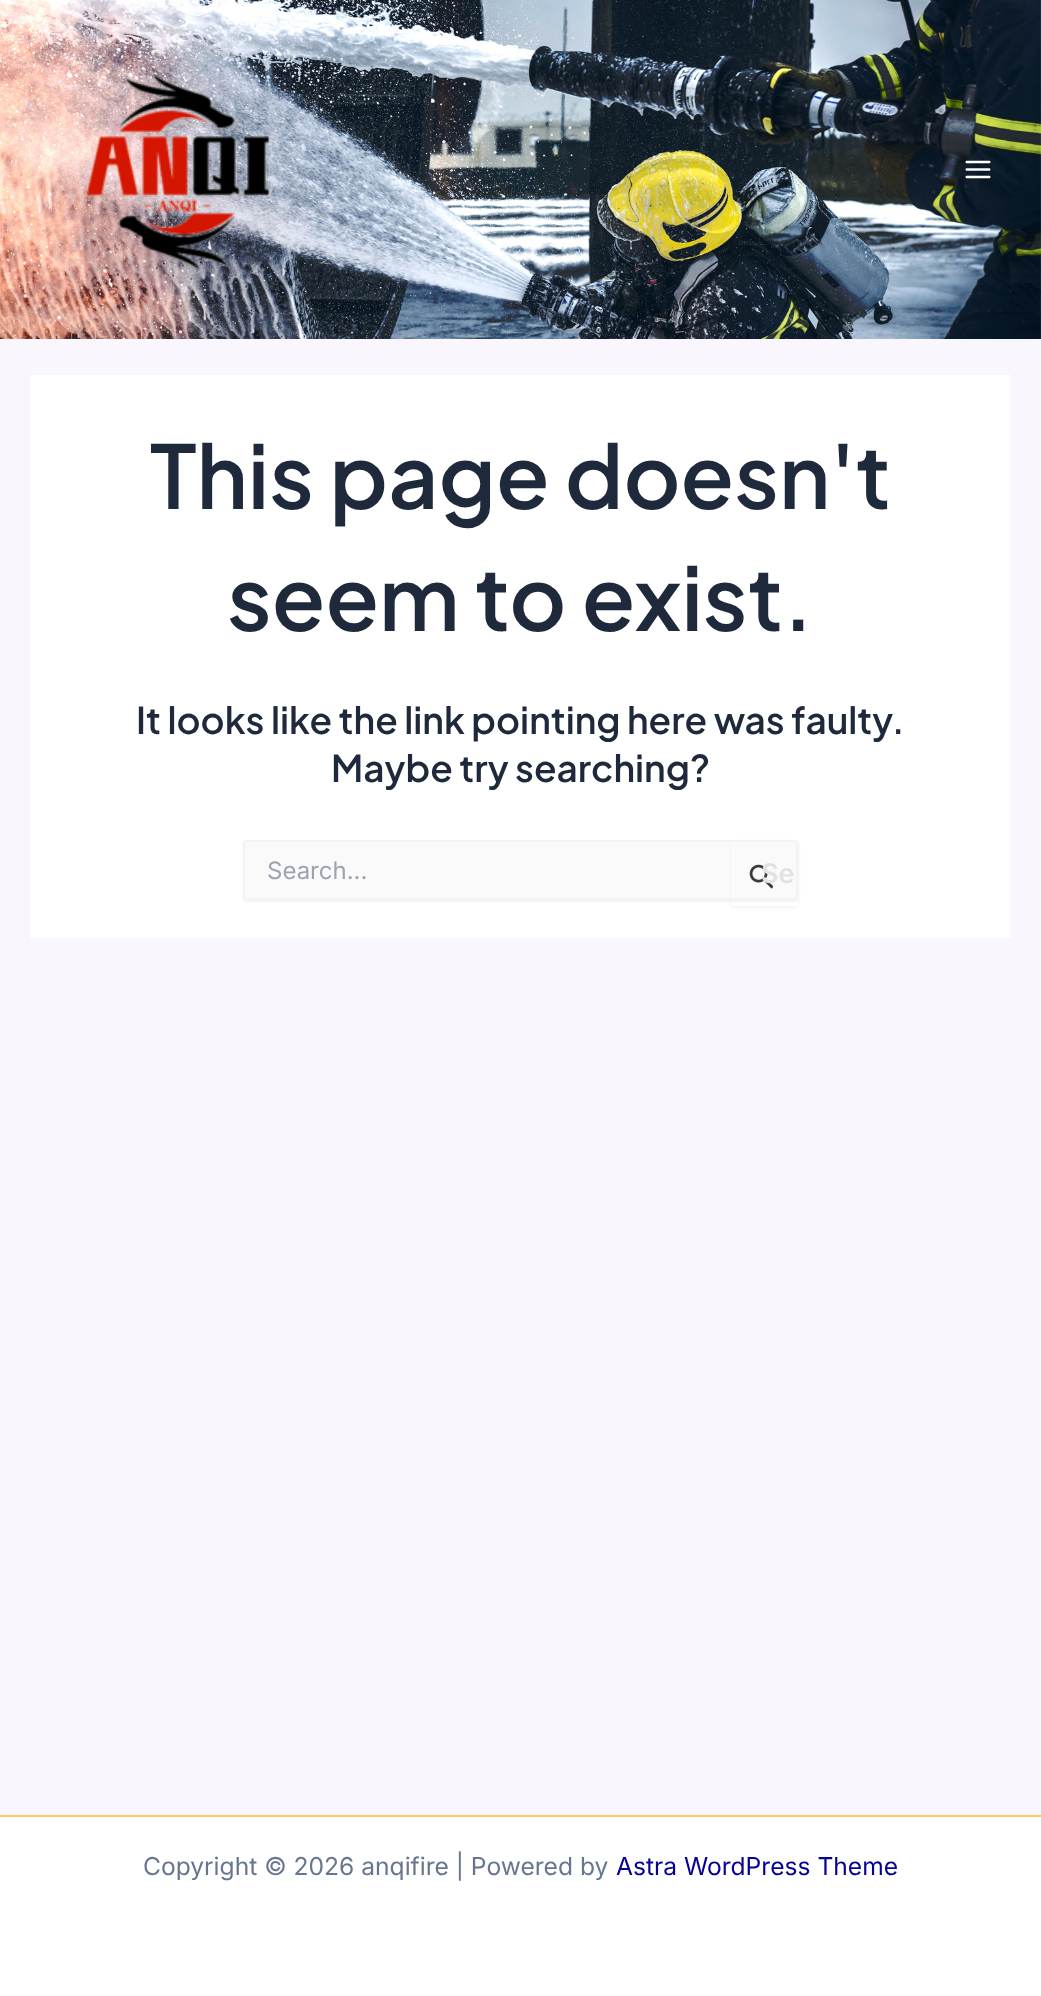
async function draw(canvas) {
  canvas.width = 1041
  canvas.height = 1996
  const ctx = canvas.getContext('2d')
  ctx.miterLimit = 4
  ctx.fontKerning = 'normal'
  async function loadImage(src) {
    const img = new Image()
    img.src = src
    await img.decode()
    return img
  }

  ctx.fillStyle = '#f9f6fe'
  ctx.fillRect(0, 0, 1041, 1996)
  ctx.drawImage(await loadImage('image0.png'), 0, 0, 1041, 339)
  ctx.drawImage(await loadImage('image1.png'), 85, 72, 186, 199)
  ctx.drawImage(await loadImage('image2.png'), 965, 160, 26, 19)
  ctx.fillStyle = '#fff'
  ctx.fillRect(30, 375, 981, 563)
  ctx.font = '600 87.5px Plus Jakarta Sans'
  ctx.fillStyle = '#1e293b'
  ctx.fillText('This page doesn\'t', 150, 509)
  ctx.fillText('seem to exist.', 227, 631)
  ctx.font = '600 36.9px Plus Jakarta Sans'
  ctx.fillText('It looks like the link pointing here was faulty.', 136, 734)
  ctx.fillText('Maybe try searching?', 331, 782)
  ctx.fillStyle = '#0000000d'
  ctx.filter = 'blur(1.5px)'
  ctx.beginPath()
  ctx.roundRect(243, 842, 555, 60, 3)
  ctx.fill()
  ctx.filter = 'none'
  ctx.fillStyle = '#fafafa'
  ctx.beginPath()
  ctx.roundRect(244, 841, 553, 58, 2)
  ctx.fill()
  ctx.strokeStyle = '#f2f5f7'
  ctx.lineWidth = 2
  ctx.stroke()
  ctx.font = '24px Inter'
  ctx.fillStyle = '#9ca3af'
  ctx.fillText('Search...', 267, 879)
  ctx.drawImage(await loadImage('image3.png'), 749, 864, 24, 25)
  ctx.save()
  ctx.beginPath()
  ctx.moveTo(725, 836)
  ctx.lineTo(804, 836)
  ctx.lineTo(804, 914)
  ctx.lineTo(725, 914)
  ctx.closePath()
  ctx.moveTo(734, 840)
  ctx.lineTo(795, 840)
  ctx.bezierCurveTo(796.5, 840, 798, 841.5, 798, 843)
  ctx.lineTo(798, 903)
  ctx.bezierCurveTo(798, 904.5, 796.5, 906, 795, 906)
  ctx.lineTo(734, 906)
  ctx.bezierCurveTo(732.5, 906, 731, 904.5, 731, 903)
  ctx.lineTo(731, 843)
  ctx.bezierCurveTo(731, 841.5, 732.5, 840, 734, 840)
  ctx.closePath()
  ctx.clip('evenodd')
  ctx.fillStyle = '#0000000d'
  ctx.filter = 'blur(1.5px)'
  ctx.beginPath()
  ctx.roundRect(731, 842, 67, 66, 3)
  ctx.fill()
  ctx.filter = 'none'
  ctx.restore()
  ctx.font = '600 27px Inter'
  ctx.fillStyle = '#e1e2e2'
  ctx.fillText('Se', 761, 883)
  ctx.fillStyle = '#fff'
  ctx.fillRect(0, 1817, 1041, 179)
  ctx.fillStyle = '#ffcd57'
  ctx.fillRect(0, 1815, 1041, 2)
  ctx.font = '24.6px Inter'
  ctx.fillStyle = '#67768e'
  ctx.fillText('Copyright © 2026 anqifire | Powered by', 143, 1875)
  ctx.fillStyle = '#060097'
  ctx.fillText('Astra WordPress Theme', 616, 1875)
}

draw(document.querySelector('canvas'))
